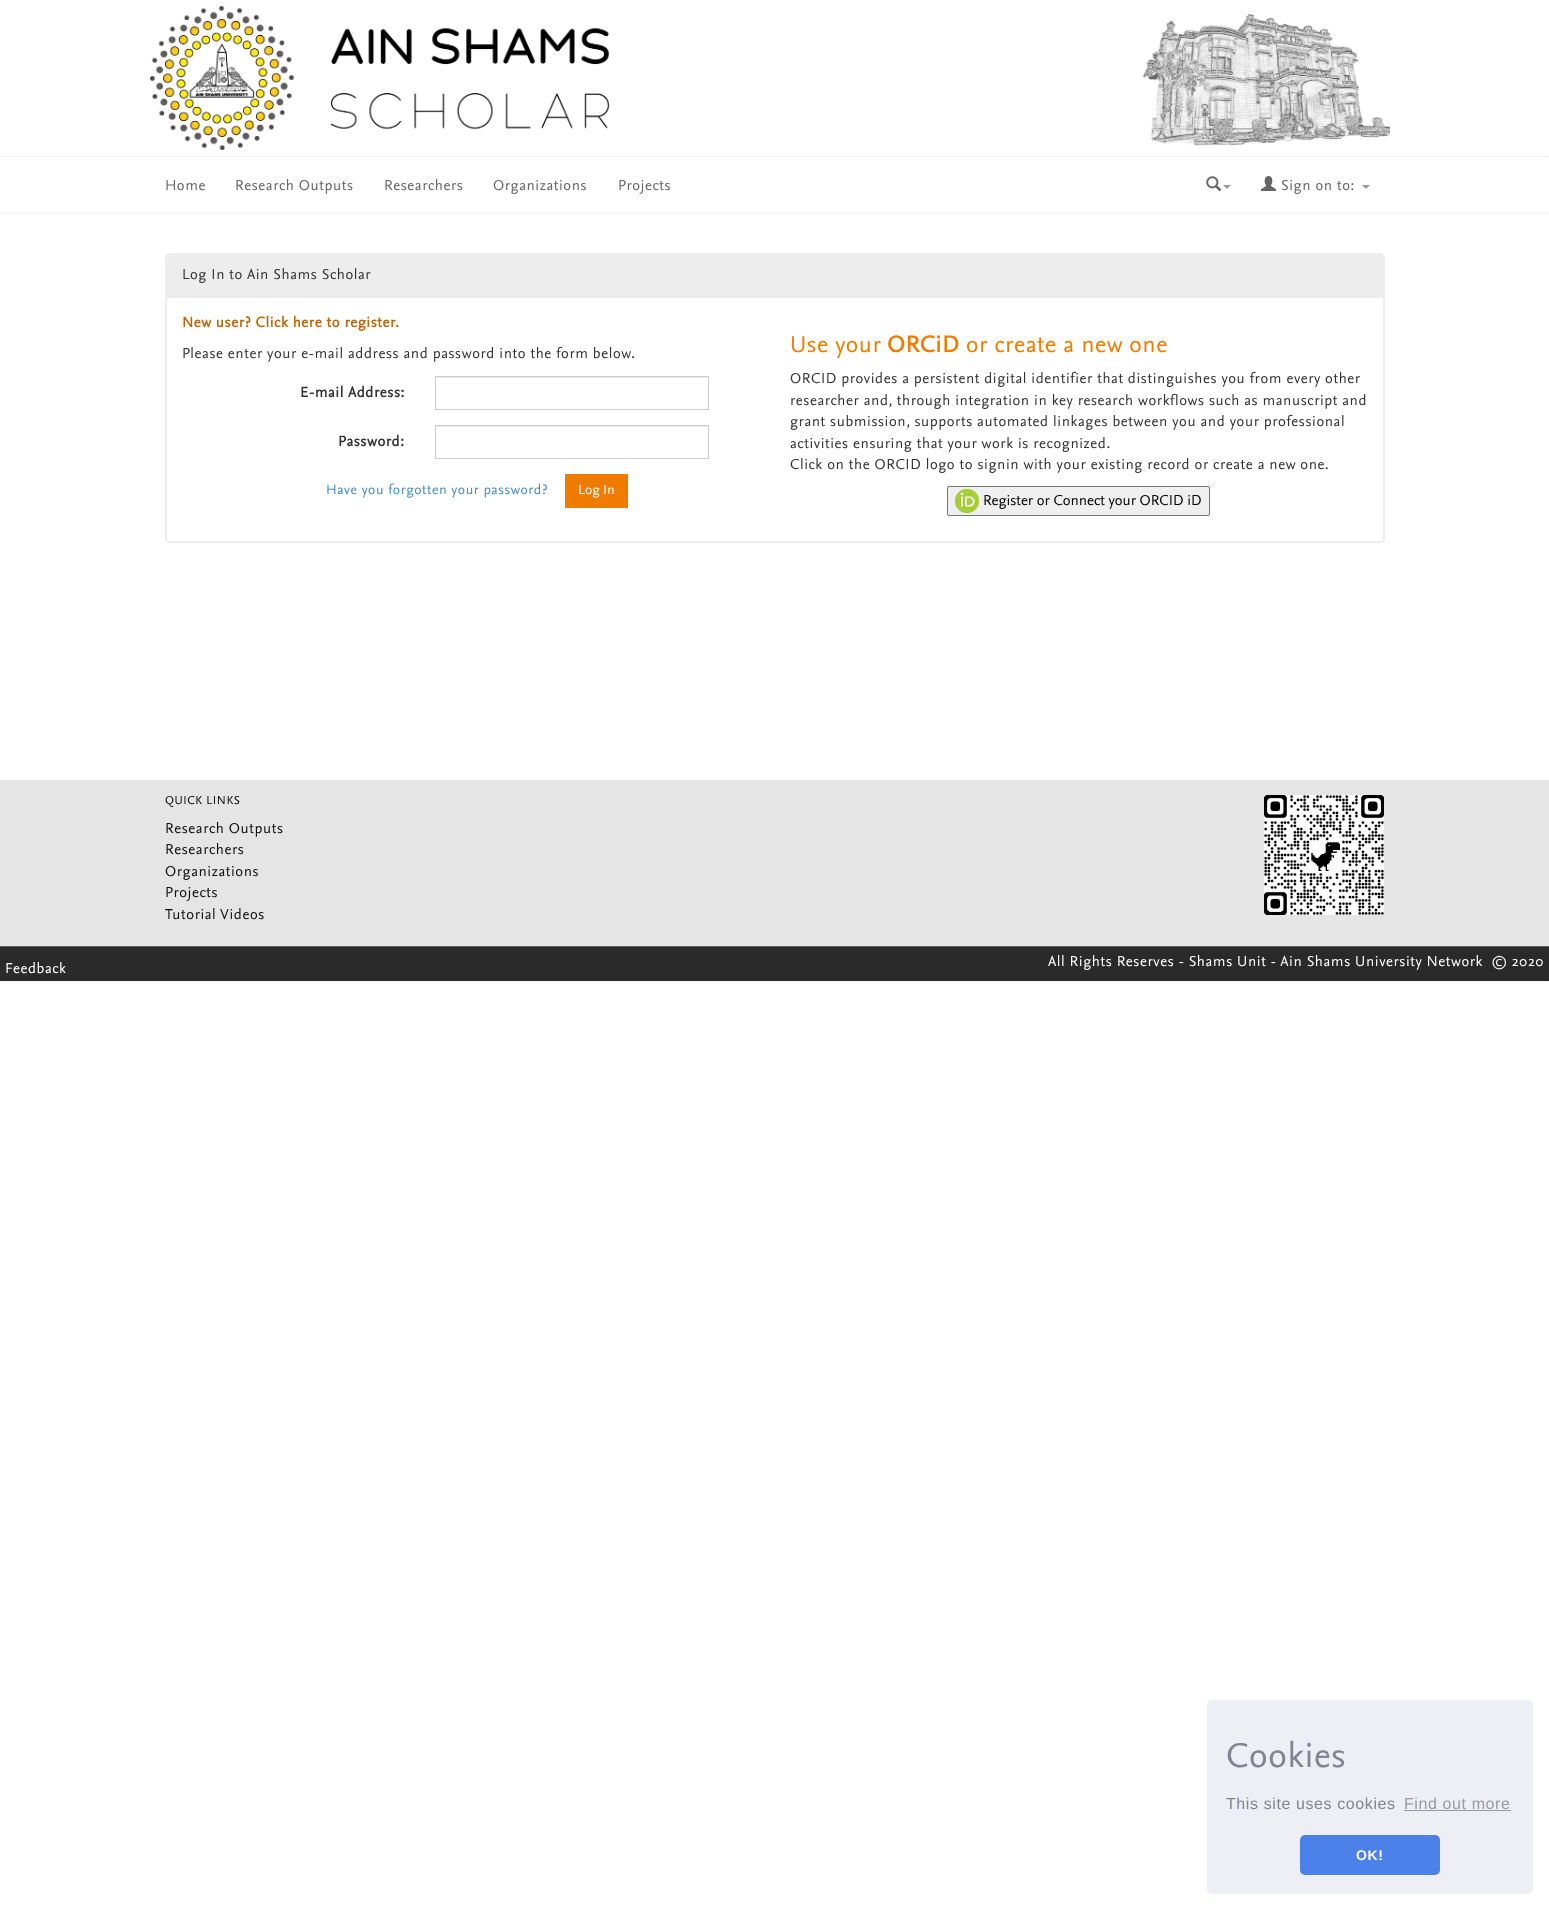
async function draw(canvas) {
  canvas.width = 1549
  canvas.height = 1910
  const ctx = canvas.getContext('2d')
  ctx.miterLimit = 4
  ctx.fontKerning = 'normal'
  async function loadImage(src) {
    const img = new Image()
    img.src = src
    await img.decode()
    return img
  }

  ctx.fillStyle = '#fff'
  ctx.fillRect(0, 0, 1549, 1910)
  ctx.drawImage(await loadImage('image0.png'), 150, 6, 460, 144)
  ctx.drawImage(await loadImage('image1.png'), 1142, 14, 248, 132)
  ctx.save()
  ctx.beginPath()
  ctx.moveTo(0, 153)
  ctx.lineTo(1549, 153)
  ctx.lineTo(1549, 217)
  ctx.lineTo(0, 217)
  ctx.closePath()
  ctx.moveTo(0, 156)
  ctx.lineTo(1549, 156)
  ctx.lineTo(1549, 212)
  ctx.lineTo(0, 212)
  ctx.closePath()
  ctx.clip('evenodd')
  ctx.fillStyle = '#d9dde380'
  ctx.filter = 'blur(1px)'
  ctx.beginPath()
  ctx.rect(0, 157, 1549, 56)
  ctx.fill()
  ctx.filter = 'none'
  ctx.restore()
  ctx.fillStyle = '#f2f2f2'
  ctx.fillRect(0, 156, 1549, 1)
  ctx.letterSpacing = '0.6px'
  ctx.font = '15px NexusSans'
  ctx.fillStyle = '#666'
  ctx.fillText('Home', 165, 190)
  ctx.fillText('Research Outputs', 235, 190)
  ctx.fillText('Researchers', 384, 190)
  ctx.fillText('Organizations', 493, 190)
  ctx.fillText('Projects', 618, 190)
  ctx.drawImage(await loadImage('image2.png'), 1206, 176, 16, 16)
  ctx.fillStyle = '#999'
  ctx.beginPath()
  ctx.moveTo(1223, 185)
  ctx.lineTo(1231, 185)
  ctx.lineTo(1227, 189)
  ctx.closePath()
  ctx.fill()
  ctx.drawImage(await loadImage('image3.png'), 1261, 176, 15, 15)
  ctx.fillStyle = '#666'
  ctx.fillText('Sign on to:', 1281, 190)
  ctx.fillStyle = '#999'
  ctx.beginPath()
  ctx.moveTo(1362, 185)
  ctx.lineTo(1370, 185)
  ctx.lineTo(1366, 189)
  ctx.closePath()
  ctx.fill()
  ctx.beginPath()
  ctx.roundRect(166, 254, 1218, 288, [4, 4, 3, 3])
  ctx.strokeStyle = '#ededed'
  ctx.lineWidth = 2
  ctx.stroke()
  ctx.fillStyle = '#ededed'
  ctx.beginPath()
  ctx.roundRect(167, 255, 1216, 43, [4, 0, 0, 0])
  ctx.fill()
  ctx.fillStyle = '#333'
  ctx.fillText('Log In to Ain Shams Scholar', 182, 279)
  ctx.font = 'bold 15px NexusSans'
  ctx.fillStyle = '#c06502'
  ctx.fillText('New user? Click here to register.', 182, 327)
  ctx.font = '15px NexusSans'
  ctx.fillStyle = '#333'
  ctx.fillText('Please enter your e-mail address and password into the form below.', 182, 358)
  ctx.font = 'bold 15px NexusSans'
  ctx.fillText('E-mail Address:', 300, 397)
  ctx.fillStyle = '#ececec'
  ctx.fillRect(436, 377, 272, 1)
  ctx.strokeStyle = '#ccc'
  ctx.lineWidth = 1
  ctx.strokeRect(435.5, 376.5, 273, 33)
  ctx.fillStyle = '#333'
  ctx.fillText('Password:', 338, 446)
  ctx.fillStyle = '#ececec'
  ctx.fillRect(436, 426, 272, 1)
  ctx.strokeRect(435.5, 425.5, 273, 33)
  ctx.font = '14px NexusSans'
  ctx.fillStyle = '#428bca'
  ctx.fillText('Have you forgotten your password?', 326, 494)
  ctx.fillStyle = '#ef7c00'
  ctx.fillRect(565, 474, 63, 34)
  ctx.letterSpacing = '0px'
  ctx.fillStyle = '#fff'
  ctx.fillText('Log In', 578, 494)
  ctx.letterSpacing = '0.6px'
  ctx.font = '24px NexusSans'
  ctx.fillStyle = '#ef7c00'
  ctx.fillText('Use your', 790, 352)
  ctx.font = 'bold 24px NexusSans'
  ctx.fillText('ORCiD', 887, 352)
  ctx.font = '24px NexusSans'
  ctx.fillText('or create a new one', 966, 352)
  ctx.font = '15px NexusSans'
  ctx.fillStyle = '#333'
  ctx.fillText('ORCID provides a persistent digital identifier that distinguishes you from every other', 790, 383)
  ctx.fillText('researcher and, through integration in key research workflows such as manuscript and', 790, 405)
  ctx.fillText('grant submission, supports automated linkages between you and your professional', 790, 426)
  ctx.fillText('activities ensuring that your work is recognized.', 790, 448)
  ctx.fillText('Click on the ORCID logo to signin with your existing record or create a new one.', 790, 469)
  ctx.fillStyle = '#efefef'
  ctx.beginPath()
  ctx.roundRect(947.5, 486.5, 262, 29, 1.5)
  ctx.fill()
  ctx.strokeStyle = '#767676'
  ctx.stroke()
  ctx.drawImage(await loadImage('image4.png'), 955, 489, 24, 24)
  ctx.letterSpacing = '0px'
  ctx.fillStyle = '#000'
  ctx.fillText('Register or Connect your ORCID iD', 983, 505)
  ctx.fillStyle = '#d9dde380'
  ctx.filter = 'blur(1px)'
  ctx.beginPath()
  ctx.rect(0, 781, 1549, 201)
  ctx.fill()
  ctx.filter = 'none'
  ctx.fillStyle = '#e5e5e5'
  ctx.fillRect(0, 780, 1549, 166)
  ctx.letterSpacing = '0.6px'
  ctx.font = '12px NexusSans'
  ctx.fillStyle = '#000'
  ctx.fillText('QUICK LINKS', 165, 804)
  ctx.font = '15px NexusSans'
  ctx.fillStyle = '#0f0f0f'
  ctx.fillText('Research Outputs', 165, 833)
  ctx.fillText('Researchers', 165, 854)
  ctx.fillText('Organizations', 165, 876)
  ctx.fillText('Projects', 165, 897)
  ctx.fillText('Tutorial Videos', 165, 919)
  ctx.drawImage(await loadImage('image5.png'), 1264, 795, 120, 120)
  ctx.fillStyle = '#2a2a2a'
  ctx.fillRect(0, 947, 1549, 34)
  ctx.fillStyle = '#616161'
  ctx.fillRect(0, 946, 1549, 1)
  ctx.fillStyle = '#fff'
  ctx.fillText('Feedback', 5, 973)
  ctx.fillText('All Rights Reserves - Shams Unit - Ain Shams University Network  © 2020', 1048, 966)
  ctx.fillStyle = '#edeff5'
  ctx.beginPath()
  ctx.roundRect(1207, 1700, 326, 194, 5)
  ctx.fill()
  ctx.font = '36px NexusSans'
  ctx.fillStyle = '#838391'
  ctx.fillText('Cookies', 1226, 1767)
  ctx.font = '16px Liberation Sans'
  ctx.fillText('This site uses cookies', 1226, 1809)
  ctx.fillStyle = '#9899a5'
  ctx.fillText('Find out more', 1404, 1809)
  ctx.fillRect(1404, 1810, 107, 1)
  ctx.fillStyle = '#4b81e8'
  ctx.beginPath()
  ctx.roundRect(1300, 1835, 140, 40, 5)
  ctx.fill()
  ctx.font = 'bold 14px Liberation Sans'
  ctx.fillStyle = '#fff'
  ctx.fillText('OK!', 1356, 1860)
}

draw(document.querySelector('canvas'))
